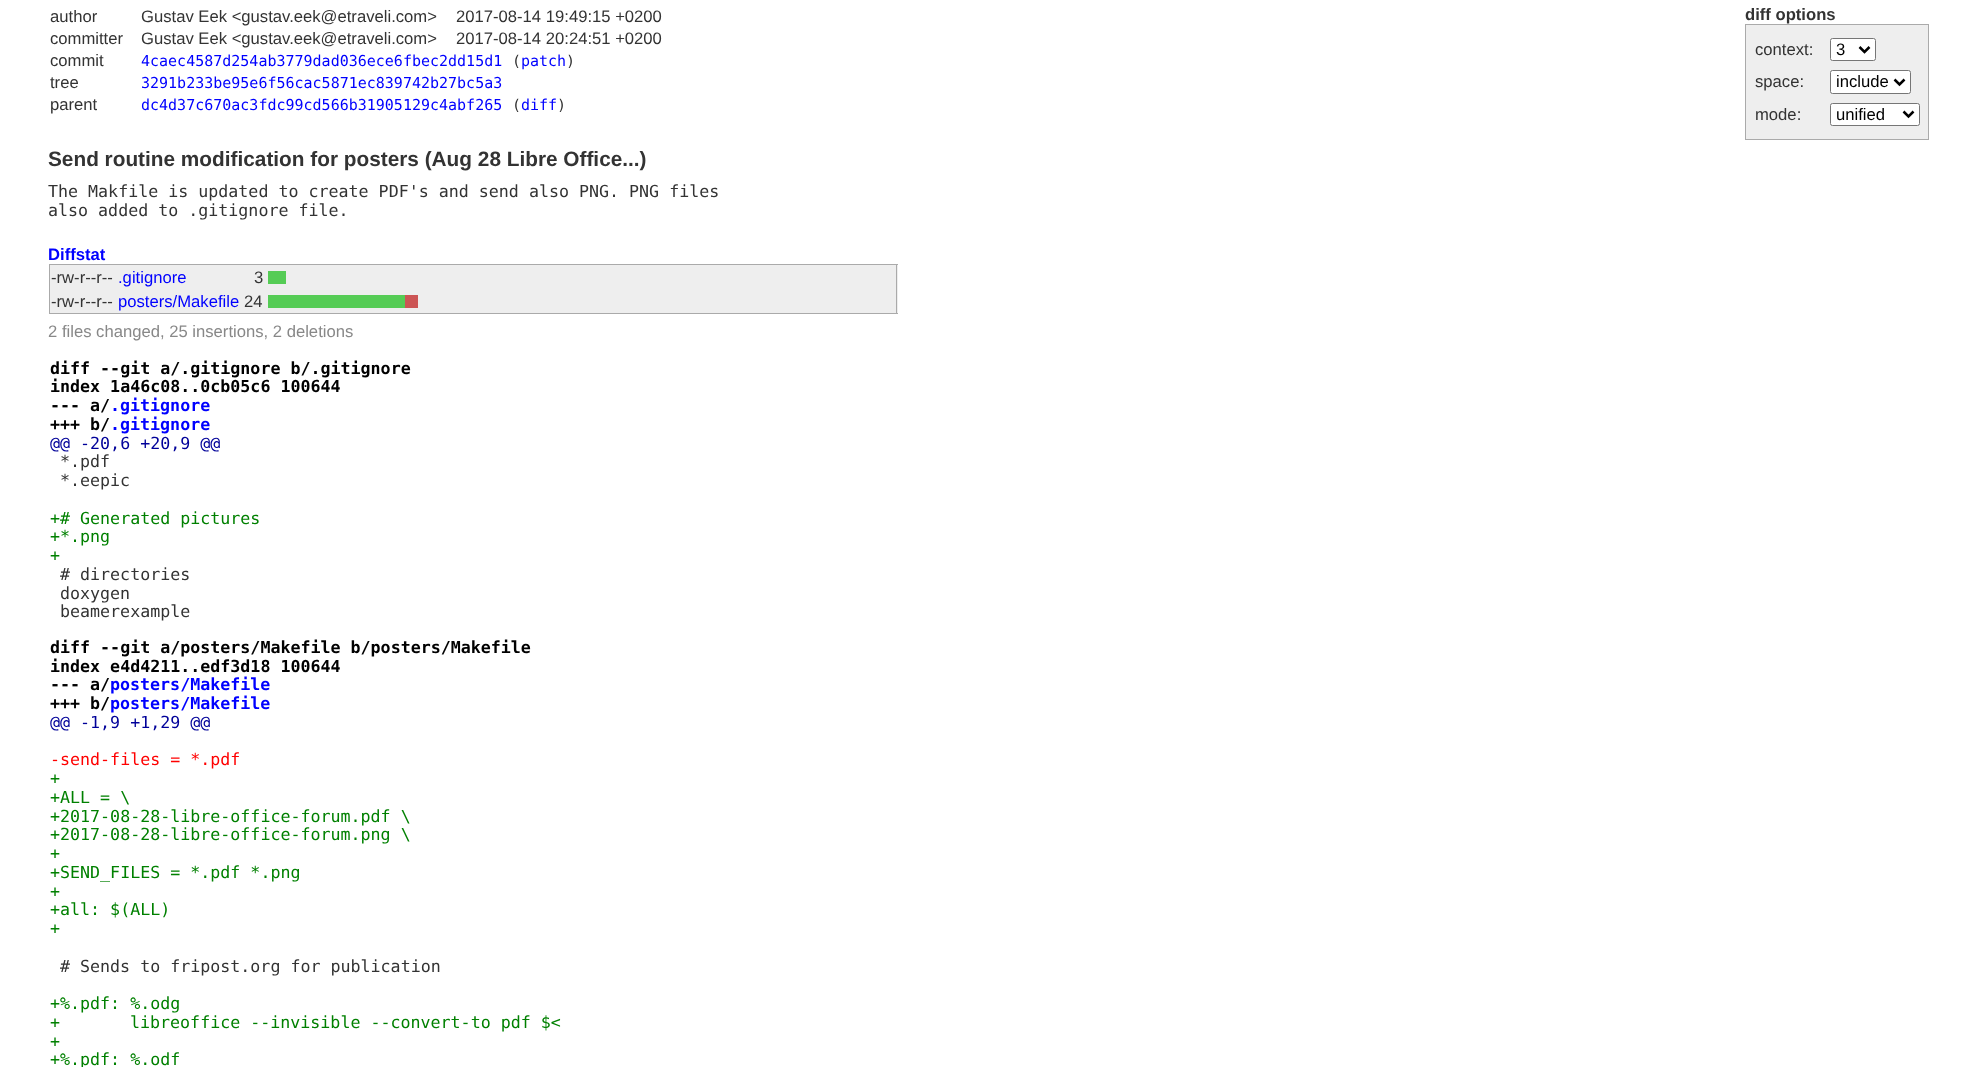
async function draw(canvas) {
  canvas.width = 1977
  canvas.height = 1067
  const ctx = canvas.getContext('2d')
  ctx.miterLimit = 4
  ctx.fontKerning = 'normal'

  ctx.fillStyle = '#fff'
  ctx.fillRect(0, 0, 1977, 1067)
  ctx.font = '16.65px Liberation Sans'
  ctx.fillStyle = '#333'
  ctx.fillText('author', 50, 22)
  ctx.fillText('Gustav Eek <gustav.eek@etraveli.com>', 141, 22)
  ctx.fillText('2017-08-14 19:49:15 +0200', 456, 22)
  ctx.fillText('committer', 50, 44)
  ctx.fillText('Gustav Eek <gustav.eek@etraveli.com>', 141, 44)
  ctx.fillText('2017-08-14 20:24:51 +0200', 456, 44)
  ctx.fillText('commit', 50, 66)
  ctx.font = '15px DejaVu Sans Mono'
  ctx.fillStyle = '#00f'
  ctx.fillText('4caec4587d254ab3779dad036ece6fbec2dd15d1', 141, 66)
  ctx.fillStyle = '#333'
  ctx.fillText('(', 512, 66)
  ctx.fillStyle = '#00f'
  ctx.fillText('patch', 521, 66)
  ctx.fillStyle = '#333'
  ctx.fillText(')', 566, 66)
  ctx.font = '16.65px Liberation Sans'
  ctx.fillText('tree', 50, 88)
  ctx.font = '15px DejaVu Sans Mono'
  ctx.fillStyle = '#00f'
  ctx.fillText('3291b233be95e6f56cac5871ec839742b27bc5a3', 141, 88)
  ctx.font = '16.65px Liberation Sans'
  ctx.fillStyle = '#333'
  ctx.fillText('parent', 50, 110)
  ctx.font = '15px DejaVu Sans Mono'
  ctx.fillStyle = '#00f'
  ctx.fillText('dc4d37c670ac3fdc99cd566b31905129c4abf265', 141, 110)
  ctx.fillStyle = '#333'
  ctx.fillText('(', 512, 110)
  ctx.fillStyle = '#00f'
  ctx.fillText('diff', 521, 110)
  ctx.fillStyle = '#333'
  ctx.fillText(')', 557, 110)
  ctx.font = 'bold 16.65px Liberation Sans'
  ctx.fillText('diff options', 1745, 20)
  ctx.fillStyle = '#eee'
  ctx.fillRect(1746, 25, 182, 114)
  ctx.fillStyle = '#aaa'
  ctx.fillRect(1745, 24, 184, 1)
  ctx.fillRect(1928, 24, 1, 116)
  ctx.fillRect(1745, 139, 184, 1)
  ctx.fillRect(1745, 24, 1, 116)
  ctx.font = '16.65px Liberation Sans'
  ctx.fillStyle = '#333'
  ctx.fillText('context:', 1755, 55)
  ctx.fillStyle = '#fff'
  ctx.beginPath()
  ctx.roundRect(1830.5, 38.5, 45, 22, 2)
  ctx.fill()
  ctx.strokeStyle = '#767676'
  ctx.stroke()
  ctx.beginPath()
  ctx.moveTo(1859.5, 47)
  ctx.lineTo(1864.5, 52)
  ctx.lineTo(1869.5, 47)
  ctx.strokeStyle = '#000'
  ctx.lineWidth = 2.5
  ctx.stroke()
  ctx.fillStyle = '#000'
  ctx.fillText('3', 1836, 55)
  ctx.fillStyle = '#333'
  ctx.fillText('space:', 1755, 87)
  ctx.fillStyle = '#fff'
  ctx.beginPath()
  ctx.roundRect(1830.5, 70.5, 80, 23, 2)
  ctx.fill()
  ctx.strokeStyle = '#767676'
  ctx.lineWidth = 1
  ctx.stroke()
  ctx.beginPath()
  ctx.moveTo(1894.5, 79.5)
  ctx.lineTo(1899.5, 84.5)
  ctx.lineTo(1904.5, 79.5)
  ctx.strokeStyle = '#000'
  ctx.lineWidth = 2.5
  ctx.stroke()
  ctx.fillStyle = '#000'
  ctx.fillText('include', 1836, 87)
  ctx.fillStyle = '#333'
  ctx.fillText('mode:', 1755, 120)
  ctx.fillStyle = '#fff'
  ctx.beginPath()
  ctx.roundRect(1830.5, 103.5, 89, 22, 2)
  ctx.fill()
  ctx.strokeStyle = '#767676'
  ctx.lineWidth = 1
  ctx.stroke()
  ctx.beginPath()
  ctx.moveTo(1903.5, 111.5)
  ctx.lineTo(1908.5, 116.5)
  ctx.lineTo(1913.5, 111.5)
  ctx.strokeStyle = '#000'
  ctx.lineWidth = 2.5
  ctx.stroke()
  ctx.fillStyle = '#000'
  ctx.fillText('unified', 1836, 120)
  ctx.font = 'bold 20.8px Liberation Sans'
  ctx.fillStyle = '#333'
  ctx.fillText('Send routine modification for posters (Aug 28 Libre Office...)', 48, 166)
  ctx.font = '16.65px DejaVu Sans Mono'
  ctx.fillText('The Makfile is updated to create PDF\'s and send also PNG. PNG files', 48, 197)
  ctx.fillText('also added to .gitignore file.', 48, 216)
  ctx.font = 'bold 16.65px Liberation Sans'
  ctx.fillStyle = '#00f'
  ctx.fillText('Diffstat', 48, 260)
  ctx.fillStyle = '#eee'
  ctx.fillRect(50, 265, 848, 48)
  ctx.fillStyle = '#aaa'
  ctx.fillRect(49, 264, 849, 1)
  ctx.fillRect(896, 264, 1, 50)
  ctx.fillRect(49, 313, 849, 1)
  ctx.fillRect(49, 264, 1, 50)
  ctx.font = '16.65px Liberation Sans'
  ctx.fillStyle = '#333'
  ctx.fillText('-rw-r--r--', 51, 283)
  ctx.fillStyle = '#00f'
  ctx.fillText('.gitignore', 118, 283)
  ctx.fillStyle = '#333'
  ctx.fillText('3', 254, 283)
  ctx.fillStyle = '#5c5'
  ctx.fillRect(268, 271, 18, 13)
  ctx.fillStyle = '#333'
  ctx.fillText('-rw-r--r--', 51, 307)
  ctx.fillStyle = '#00f'
  ctx.fillText('posters/Makefile', 118, 307)
  ctx.fillStyle = '#333'
  ctx.fillText('24', 244, 307)
  ctx.fillStyle = '#5c5'
  ctx.fillRect(268, 295, 137, 13)
  ctx.fillStyle = '#c55'
  ctx.fillRect(405, 295, 13, 13)
  ctx.fillStyle = '#888'
  ctx.fillText('2 files changed, 25 insertions, 2 deletions', 48, 337)
  ctx.font = 'bold 16.65px DejaVu Sans Mono'
  ctx.fillStyle = '#000'
  ctx.fillText('diff --git a/.gitignore b/.gitignore', 50, 374)
  ctx.fillText('index 1a46c08..0cb05c6 100644', 50, 392)
  ctx.fillText('--- a/', 50, 411)
  ctx.fillStyle = '#00f'
  ctx.fillText('.gitignore', 110, 411)
  ctx.fillStyle = '#000'
  ctx.fillText('+++ b/', 50, 430)
  ctx.fillStyle = '#00f'
  ctx.fillText('.gitignore', 110, 430)
  ctx.font = '16.65px DejaVu Sans Mono'
  ctx.fillStyle = '#009'
  ctx.fillText('@@ -20,6 +20,9 @@', 50, 449)
  ctx.fillStyle = '#333'
  ctx.fillText('*.pdf', 60, 467)
  ctx.fillText('*.eepic', 60, 486)
  ctx.fillStyle = '#008000'
  ctx.fillText('+# Generated pictures', 50, 524)
  ctx.fillText('+*.png', 50, 542)
  ctx.fillText('+', 50, 561)
  ctx.fillStyle = '#333'
  ctx.fillText('# directories', 60, 580)
  ctx.fillText('doxygen', 60, 599)
  ctx.fillText('beamerexample', 60, 617)
  ctx.font = 'bold 16.65px DejaVu Sans Mono'
  ctx.fillStyle = '#000'
  ctx.fillText('diff --git a/posters/Makefile b/posters/Makefile', 50, 653)
  ctx.fillText('index e4d4211..edf3d18 100644', 50, 672)
  ctx.fillText('--- a/', 50, 690)
  ctx.fillStyle = '#00f'
  ctx.fillText('posters/Makefile', 110, 690)
  ctx.fillStyle = '#000'
  ctx.fillText('+++ b/', 50, 709)
  ctx.fillStyle = '#00f'
  ctx.fillText('posters/Makefile', 110, 709)
  ctx.font = '16.65px DejaVu Sans Mono'
  ctx.fillStyle = '#009'
  ctx.fillText('@@ -1,9 +1,29 @@', 50, 728)
  ctx.fillStyle = '#f00'
  ctx.fillText('-send-files = *.pdf', 50, 765)
  ctx.fillStyle = '#008000'
  ctx.fillText('+', 50, 784)
  ctx.fillText('+ALL = \\', 50, 803)
  ctx.fillText('+2017-08-28-libre-office-forum.pdf \\', 50, 822)
  ctx.fillText('+2017-08-28-libre-office-forum.png \\', 50, 840)
  ctx.fillText('+', 50, 859)
  ctx.fillText('+SEND_FILES = *.pdf *.png', 50, 878)
  ctx.fillText('+', 50, 897)
  ctx.fillText('+all: $(ALL)', 50, 915)
  ctx.fillText('+', 50, 934)
  ctx.fillStyle = '#333'
  ctx.fillText('# Sends to fripost.org for publication', 60, 972)
  ctx.fillStyle = '#008000'
  ctx.fillText('+%.pdf: %.odg', 50, 1009)
  ctx.fillText('+', 50, 1028)
  ctx.fillText('libreoffice --invisible --convert-to pdf $<', 130, 1028)
  ctx.fillText('+', 50, 1047)
  ctx.fillText('+%.pdf: %.odf', 50, 1065)
}

draw(document.querySelector('canvas'))
